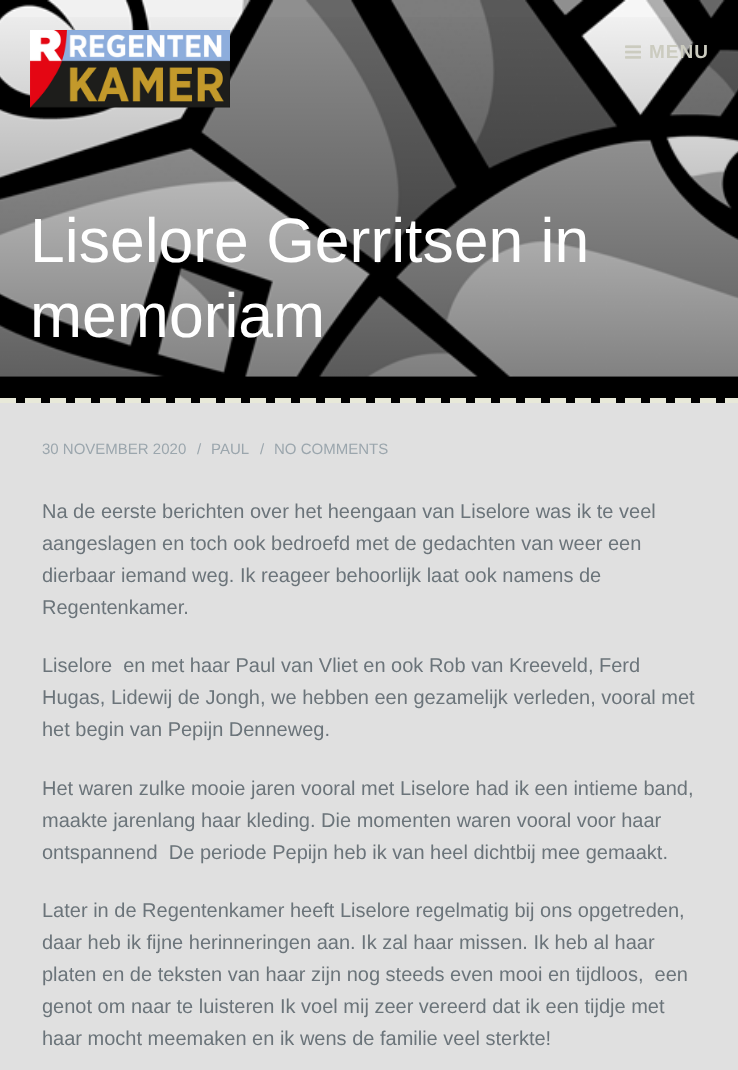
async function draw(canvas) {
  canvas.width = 738
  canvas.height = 1070
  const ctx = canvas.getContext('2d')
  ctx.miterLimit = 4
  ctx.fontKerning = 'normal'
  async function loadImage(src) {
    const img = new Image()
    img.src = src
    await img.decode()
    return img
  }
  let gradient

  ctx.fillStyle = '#e0e0e0'
  ctx.fillRect(0, 0, 738, 1070)
  ctx.fillStyle = '#000'
  ctx.fillRect(0, 377, 738, 26)
  ctx.drawImage(await loadImage('image0.png'), 0, 0, 738, 377)
  gradient = ctx.createLinearGradient(369, 0, 369, 398)
  gradient.addColorStop(0, '#00000000')
  gradient.addColorStop(1, '#00000080')
  ctx.fillStyle = gradient
  ctx.fillRect(0, 17, 738, 360)
  ctx.drawImage(await loadImage('image1.png'), 30, 30, 200, 78)
  ctx.drawImage(await loadImage('image2.png'), 625, 45, 16, 14)
  ctx.letterSpacing = '1px'
  ctx.font = 'bold 19px Liberation Sans'
  ctx.fillStyle = '#cbcbbf'
  ctx.fillText('MENU', 649, 58)
  ctx.letterSpacing = '0px'
  ctx.font = '62.5px Liberation Sans'
  ctx.fillStyle = '#fff'
  ctx.fillText('Liselore Gerritsen in', 30, 262)
  ctx.fillText('memoriam', 30, 337)
  ctx.drawImage(await loadImage('image3.png'), 0, 398, 738, 5)
  ctx.font = '15px Liberation Sans'
  ctx.fillStyle = '#9ba6ad'
  ctx.fillText('30 NOVEMBER 2020', 42, 454)
  ctx.fillText('/', 197, 454)
  ctx.fillText('PAUL', 211, 454)
  ctx.fillText('/', 260, 454)
  ctx.fillText('NO COMMENTS', 274, 454)
  ctx.font = '20px Liberation Sans'
  ctx.fillStyle = '#6b747a'
  ctx.fillText('Na de eerste berichten over het heengaan van Liselore was ik te veel', 42, 518)
  ctx.fillText('aangeslagen en toch ook bedroefd met de gedachten van weer een', 42, 550)
  ctx.fillText('dierbaar iemand weg. Ik reageer behoorlijk laat ook namens de', 42, 582)
  ctx.fillText('Regentenkamer.', 42, 614)
  ctx.fillText('Liselore  en met haar Paul van Vliet en ook Rob van Kreeveld, Ferd', 42, 672)
  ctx.fillText('Hugas, Lidewij de Jongh, we hebben een gezamelijk verleden, vooral met', 42, 704)
  ctx.fillText('het begin van Pepijn Denneweg.', 42, 736)
  ctx.fillText('Het waren zulke mooie jaren vooral met Liselore had ik een intieme band,', 42, 795)
  ctx.fillText('maakte jarenlang haar kleding. Die momenten waren vooral voor haar', 42, 827)
  ctx.fillText('ontspannend  De periode Pepijn heb ik van heel dichtbij mee gemaakt.', 42, 859)
  ctx.fillText('Later in de Regentenkamer heeft Liselore regelmatig bij ons opgetreden,', 42, 917)
  ctx.fillText('daar heb ik fijne herinneringen aan. Ik zal haar missen. Ik heb al haar', 42, 949)
  ctx.fillText('platen en de teksten van haar zijn nog steeds even mooi en tijdloos,  een', 42, 981)
  ctx.fillText('genot om naar te luisteren Ik voel mij zeer vereerd dat ik een tijdje met', 42, 1013)
  ctx.fillText('haar mocht meemaken en ik wens de familie veel sterkte!', 42, 1045)
}

draw(document.querySelector('canvas'))
